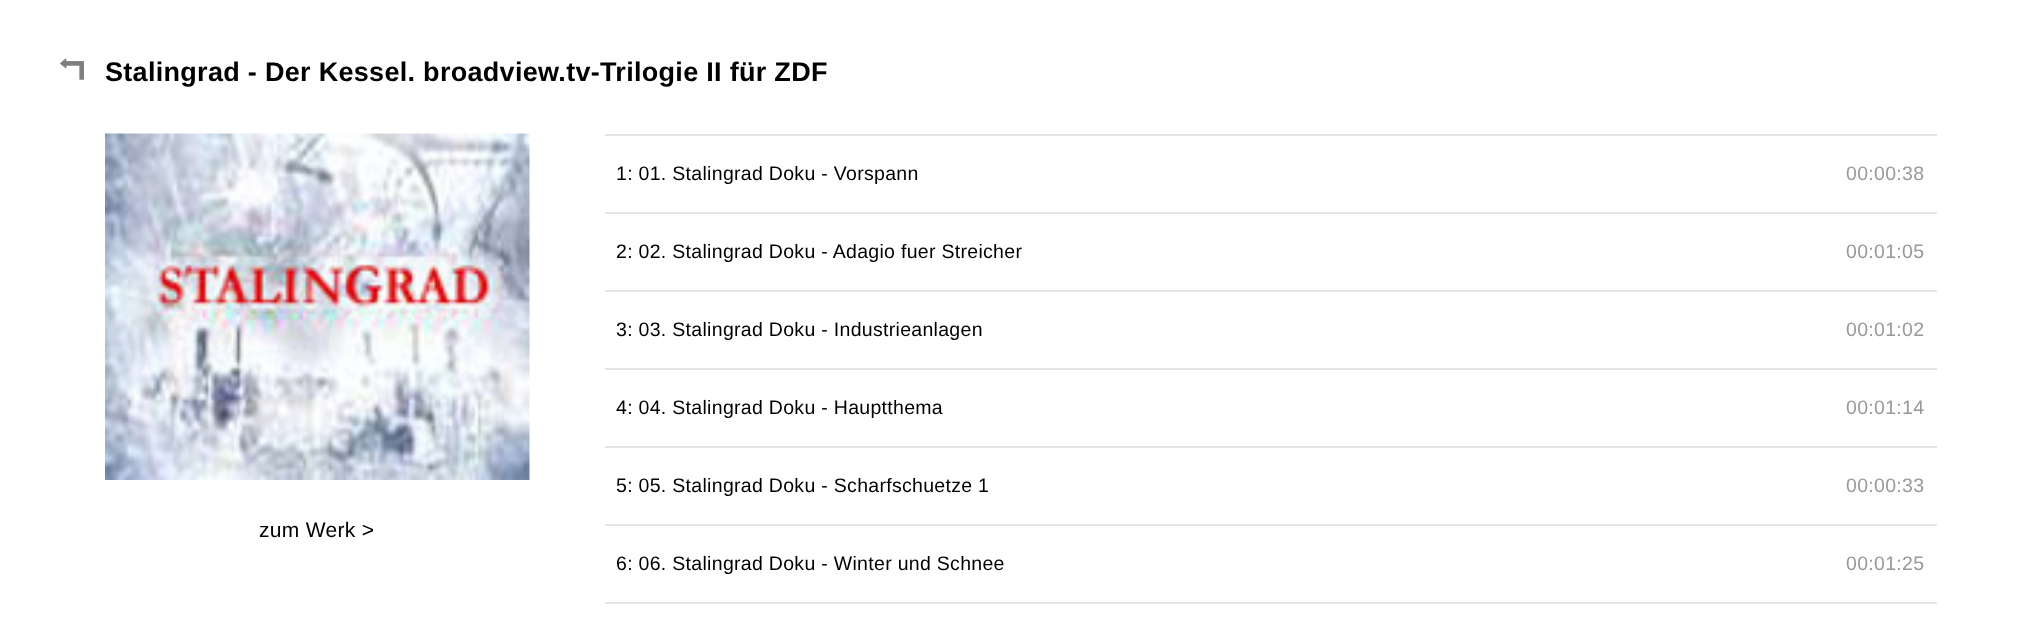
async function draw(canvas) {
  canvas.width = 2041
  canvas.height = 636
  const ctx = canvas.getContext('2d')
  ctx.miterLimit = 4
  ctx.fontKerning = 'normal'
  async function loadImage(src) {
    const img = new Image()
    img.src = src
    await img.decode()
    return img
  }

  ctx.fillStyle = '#fff'
  ctx.fillRect(0, 0, 2041, 636)
  ctx.drawImage(await loadImage('image0.png'), 60, 58, 24, 22)
  ctx.letterSpacing = '0.3px'
  ctx.font = 'bold 27px Liberation Sans'
  ctx.fillStyle = '#000'
  ctx.fillText('Stalingrad - Der Kessel. broadview.tv-Trilogie II für ZDF', 105, 81)
  ctx.drawImage(await loadImage('image1.png'), 105, 133, 425, 347)
  ctx.font = '21px Liberation Sans'
  ctx.fillText('zum Werk >', 259, 537)
  ctx.fillStyle = '#e5e5e5'
  ctx.fillRect(605, 134, 1332, 2)
  ctx.fillRect(605, 212, 1332, 2)
  ctx.font = '19.5px Liberation Sans'
  ctx.fillStyle = '#000'
  ctx.fillText('1: 01. Stalingrad Doku - Vorspann', 616, 180)
  ctx.fillStyle = '#999'
  ctx.fillText('00:00:38', 1846, 180)
  ctx.fillStyle = '#e5e5e5'
  ctx.fillRect(605, 290, 1332, 2)
  ctx.fillStyle = '#000'
  ctx.fillText('2: 02. Stalingrad Doku - Adagio fuer Streicher', 616, 258)
  ctx.fillStyle = '#999'
  ctx.fillText('00:01:05', 1846, 258)
  ctx.fillStyle = '#e5e5e5'
  ctx.fillRect(605, 368, 1332, 2)
  ctx.fillStyle = '#000'
  ctx.fillText('3: 03. Stalingrad Doku - Industrieanlagen', 616, 336)
  ctx.fillStyle = '#999'
  ctx.fillText('00:01:02', 1846, 336)
  ctx.fillStyle = '#e5e5e5'
  ctx.fillRect(605, 446, 1332, 2)
  ctx.fillStyle = '#000'
  ctx.fillText('4: 04. Stalingrad Doku - Hauptthema', 616, 414)
  ctx.fillStyle = '#999'
  ctx.fillText('00:01:14', 1846, 414)
  ctx.fillStyle = '#e5e5e5'
  ctx.fillRect(605, 524, 1332, 2)
  ctx.fillStyle = '#000'
  ctx.fillText('5: 05. Stalingrad Doku - Scharfschuetze 1', 616, 492)
  ctx.fillStyle = '#999'
  ctx.fillText('00:00:33', 1846, 492)
  ctx.fillStyle = '#e5e5e5'
  ctx.fillRect(605, 602, 1332, 2)
  ctx.fillStyle = '#000'
  ctx.fillText('6: 06. Stalingrad Doku - Winter und Schnee', 616, 570)
  ctx.fillStyle = '#999'
  ctx.fillText('00:01:25', 1846, 570)
}

draw(document.querySelector('canvas'))
